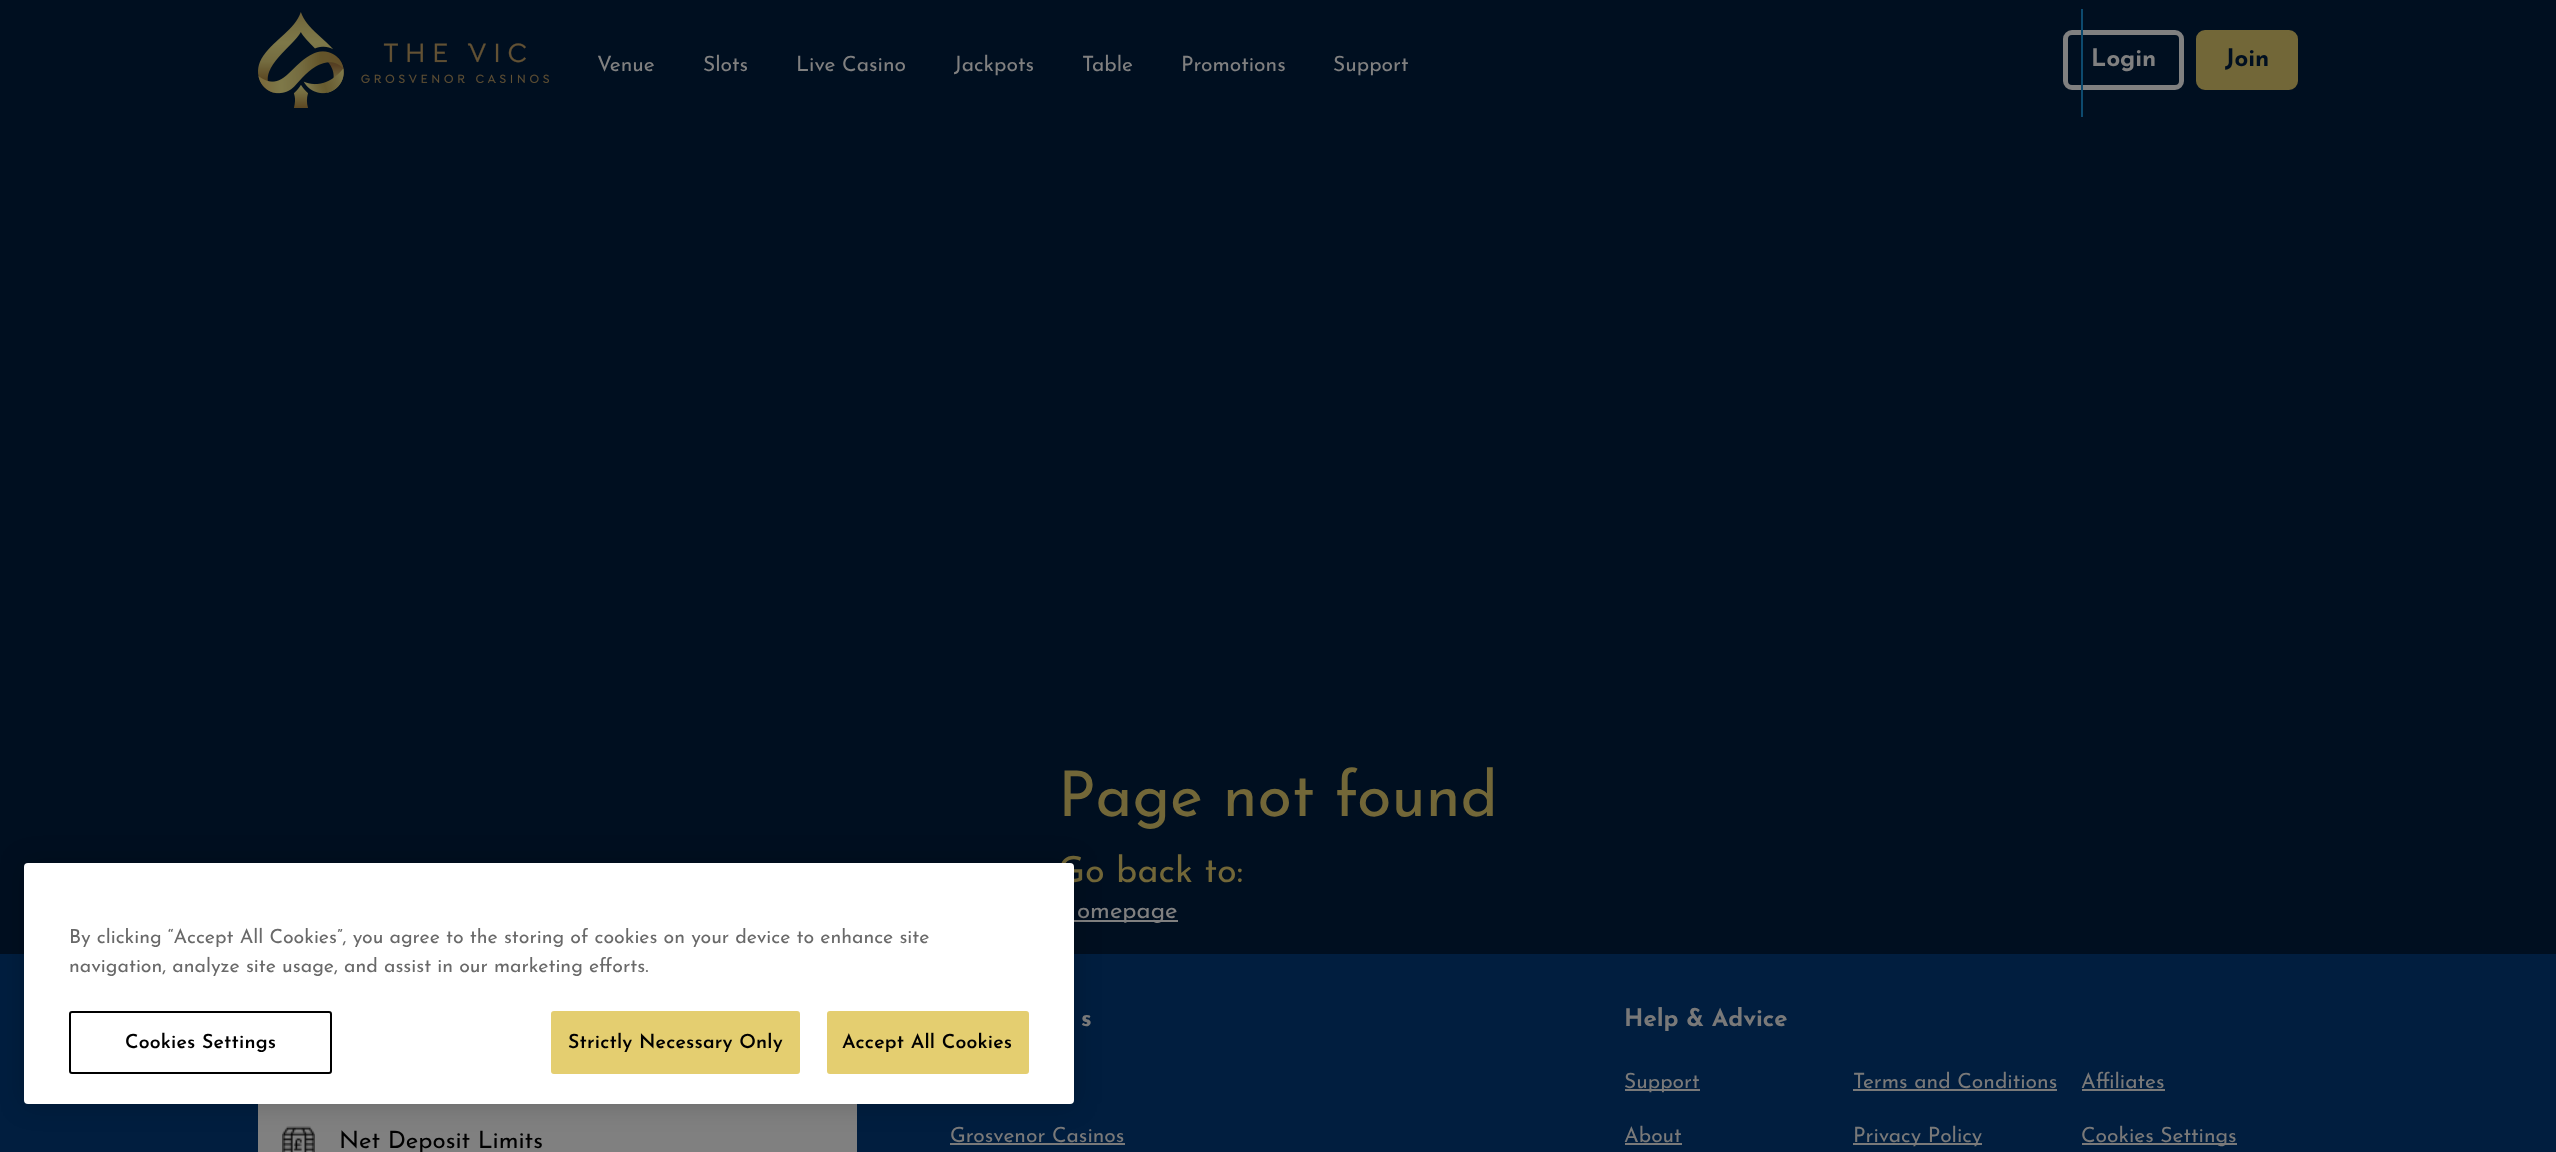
async function draw(canvas) {
  canvas.width = 2556
  canvas.height = 1152
  const ctx = canvas.getContext('2d')
  ctx.miterLimit = 4
  ctx.fontKerning = 'normal'
  async function loadImage(src) {
    const img = new Image()
    img.src = src
    await img.decode()
    return img
  }

  ctx.fillStyle = '#000f20'
  ctx.fillRect(0, 0, 2556, 1152)
  ctx.drawImage(await loadImage('image0.png'), 258, 12, 291, 96)
  ctx.font = '21px Josefin Sans'
  ctx.fillStyle = '#808080'
  ctx.fillText('Venue', 597, 71)
  ctx.fillText('Slots', 703, 71)
  ctx.fillText('Live Casino', 796, 71)
  ctx.fillText('Jackpots', 954, 71)
  ctx.fillText('Table', 1082, 71)
  ctx.fillText('Promotions', 1181, 71)
  ctx.fillText('Support', 1333, 71)
  ctx.beginPath()
  ctx.roundRect(2065.5, 32.5, 116, 55, 6.5)
  ctx.strokeStyle = '#808080'
  ctx.lineWidth = 5
  ctx.stroke()
  ctx.fillStyle = '#0d4a6e'
  ctx.fillRect(2081, 9, 2, 108)
  ctx.font = 'bold 24px Josefin Sans'
  ctx.fillStyle = '#808080'
  ctx.fillText('Login', 2091, 66)
  ctx.fillStyle = '#726738'
  ctx.beginPath()
  ctx.roundRect(2198.5, 32.5, 97, 55, 6.5)
  ctx.fill()
  ctx.strokeStyle = '#726738'
  ctx.stroke()
  ctx.fillStyle = '#000f20'
  ctx.fillText('Join', 2225, 66)
  ctx.font = '63px Josefin Sans'
  ctx.fillStyle = '#726738'
  ctx.fillText('Page not found', 1058, 816)
  ctx.font = '36px Josefin Sans'
  ctx.fillText('Go back to:', 1058, 882)
  ctx.fillStyle = '#808080'
  ctx.fillRect(1074, 920, 104, 2)
  ctx.font = '24px Josefin Sans'
  ctx.fillText('omepage', 1077, 918)
  ctx.fillStyle = '#011e3f'
  ctx.fillRect(0, 954, 2556, 198)
  ctx.fillStyle = '#808080'
  ctx.fillRect(258, 1104, 599, 48)
  ctx.drawImage(await loadImage('image1.png'), 282, 1126, 33, 26)
  ctx.fillStyle = '#797979'
  ctx.fillRect(950, 1143, 175, 2)
  ctx.fillStyle = '#00000033'
  ctx.filter = 'blur(13.5px)'
  ctx.beginPath()
  ctx.roundRect(24, 863, 1050, 241, 4)
  ctx.fill()
  ctx.filter = 'none'
  ctx.fillStyle = '#fff'
  ctx.beginPath()
  ctx.roundRect(24, 863, 1050, 241, 4)
  ctx.fill()
  ctx.font = '19.5px Josefin Sans'
  ctx.fillStyle = '#696969'
  ctx.fillText('By clicking “Accept All Cookies”, you agree to the storing of cookies on your device to enhance site', 69, 943)
  ctx.fillText('navigation, analyze site usage, and assist in our marketing efforts.', 69, 972)
  ctx.beginPath()
  ctx.roundRect(70, 1012, 261, 61, 2)
  ctx.strokeStyle = '#000'
  ctx.lineWidth = 2
  ctx.stroke()
  ctx.letterSpacing = '0.2px'
  ctx.font = '600 19.5px Josefin Sans'
  ctx.fillStyle = '#000'
  ctx.fillText('Cookies Settings', 125, 1048)
  ctx.fillStyle = '#e4ce70'
  ctx.beginPath()
  ctx.roundRect(552, 1012, 247, 61, 2)
  ctx.fill()
  ctx.strokeStyle = '#e4ce70'
  ctx.stroke()
  ctx.fillStyle = '#000'
  ctx.fillText('Strictly Necessary Only', 568, 1048)
  ctx.fillStyle = '#e4ce70'
  ctx.beginPath()
  ctx.roundRect(828, 1012, 200, 61, 2)
  ctx.fill()
  ctx.stroke()
  ctx.fillStyle = '#000'
  ctx.fillText('Accept All Cookies', 842, 1048)
  ctx.letterSpacing = '0px'
  ctx.font = '24px Josefin Sans'
  ctx.fillText('Net Deposit Limits', 339, 1148)
  ctx.font = 'bold 24px Josefin Sans'
  ctx.fillStyle = '#797979'
  ctx.fillText('s', 1081, 1026)
  ctx.font = '21px Josefin Sans'
  ctx.fillText('Grosvenor Casinos', 950, 1142)
  ctx.font = 'bold 24px Josefin Sans'
  ctx.fillText('Help & Advice', 1624, 1026)
  ctx.fillRect(1625, 1089, 75, 2)
  ctx.font = '21px Josefin Sans'
  ctx.fillText('Support', 1624, 1088)
  ctx.fillText('Terms and Conditions', 1853, 1088)
  ctx.fillRect(1853, 1089, 204, 2)
  ctx.fillText('Affiliates', 2081, 1088)
  ctx.fillRect(2082, 1089, 83, 2)
  ctx.fillText('About', 1624, 1142)
  ctx.fillRect(1625, 1143, 57, 2)
  ctx.fillRect(1853, 1143, 129, 2)
  ctx.fillText('Privacy Policy', 1853, 1142)
  ctx.fillRect(2082, 1143, 155, 2)
  ctx.fillText('Cookies Settings', 2081, 1142)
}

draw(document.querySelector('canvas'))
